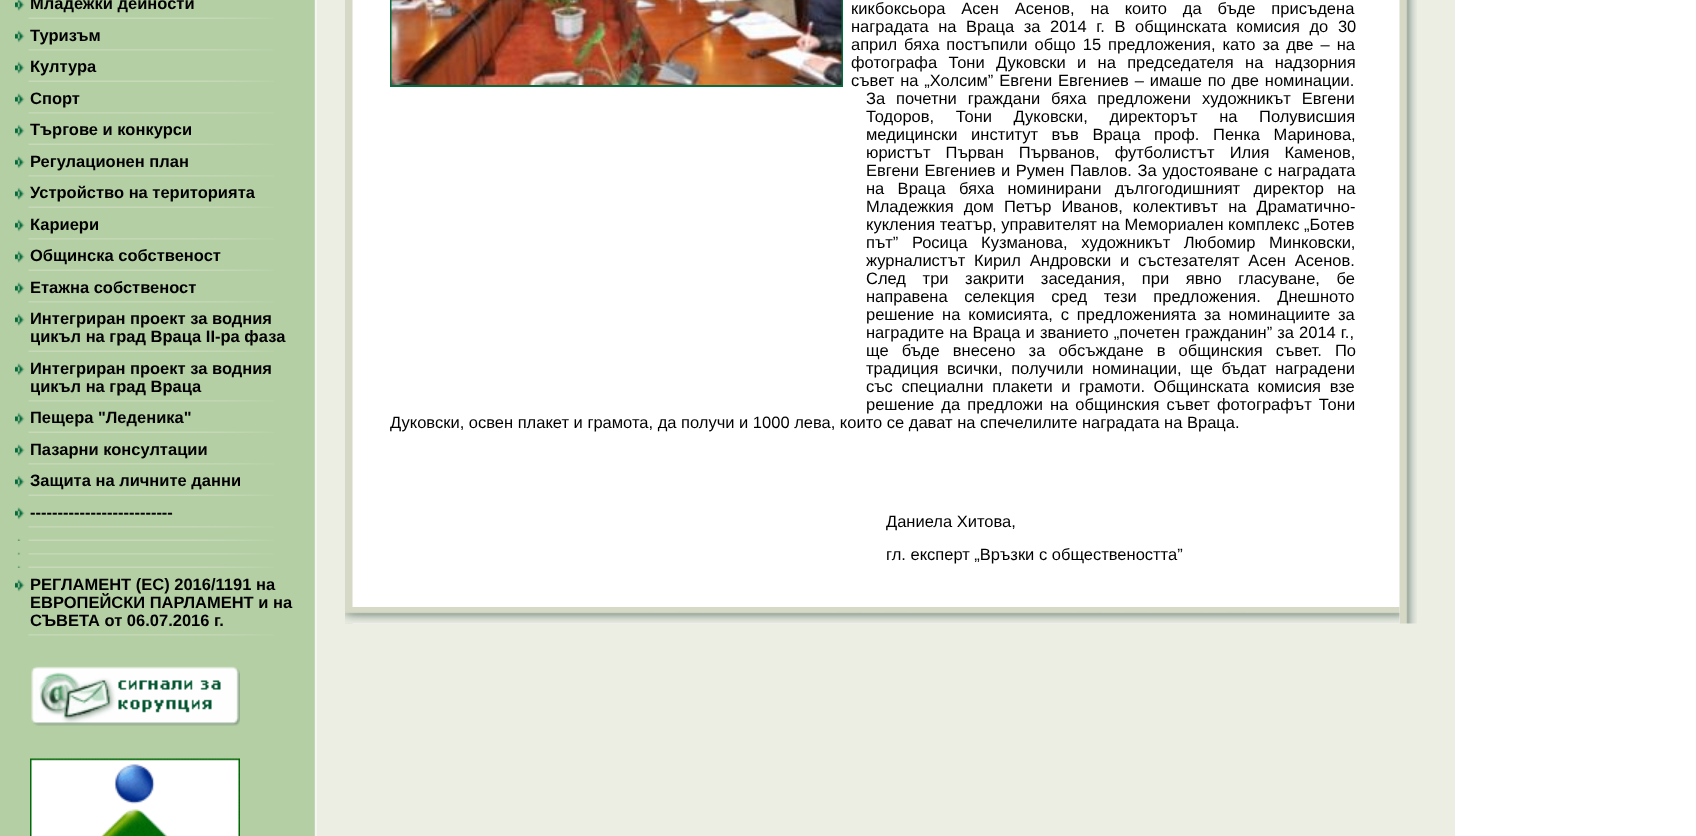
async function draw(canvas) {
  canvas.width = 1696
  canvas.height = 836
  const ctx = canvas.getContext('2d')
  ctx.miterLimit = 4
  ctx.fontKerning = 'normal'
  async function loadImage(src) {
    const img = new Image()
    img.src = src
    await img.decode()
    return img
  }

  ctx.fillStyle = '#fff'
  ctx.fillRect(0, 0, 1696, 836)
  ctx.drawImage(await loadImage('image0.png'), 0, 0, 1455, 836)
  ctx.drawImage(await loadImage('image1.png'), 28, 17, 246, 2)
  ctx.drawImage(await loadImage('image2.png'), 15, 0, 10, 11)
  ctx.font = 'bold 16.5px Liberation Sans'
  ctx.fillStyle = '#000'
  ctx.fillText('Младежки дейности', 30, 9)
  ctx.drawImage(await loadImage('image3.png'), 28, 49, 246, 2)
  ctx.drawImage(await loadImage('image4.png'), 15, 30, 10, 13)
  ctx.fillText('Туризъм', 30, 41)
  ctx.drawImage(await loadImage('image1.png'), 28, 80, 246, 2)
  ctx.drawImage(await loadImage('image5.png'), 15, 61, 10, 13)
  ctx.fillText('Култура', 30, 72)
  ctx.drawImage(await loadImage('image3.png'), 28, 112, 246, 2)
  ctx.drawImage(await loadImage('image4.png'), 15, 93, 10, 13)
  ctx.fillText('Спорт', 30, 104)
  ctx.drawImage(await loadImage('image1.png'), 28, 143, 246, 2)
  ctx.drawImage(await loadImage('image5.png'), 15, 124, 10, 13)
  ctx.fillText('Търгове и конкурси', 30, 135)
  ctx.drawImage(await loadImage('image3.png'), 28, 175, 246, 2)
  ctx.drawImage(await loadImage('image4.png'), 15, 156, 10, 13)
  ctx.fillText('Регулационен план', 30, 167)
  ctx.drawImage(await loadImage('image1.png'), 28, 206, 246, 2)
  ctx.drawImage(await loadImage('image5.png'), 15, 187, 10, 13)
  ctx.fillText('Устройство на територията', 30, 198)
  ctx.drawImage(await loadImage('image3.png'), 28, 238, 246, 2)
  ctx.drawImage(await loadImage('image4.png'), 15, 219, 10, 13)
  ctx.fillText('Кариери', 30, 230)
  ctx.drawImage(await loadImage('image1.png'), 28, 269, 246, 2)
  ctx.drawImage(await loadImage('image5.png'), 15, 250, 10, 13)
  ctx.fillText('Общинска собственост', 30, 261)
  ctx.drawImage(await loadImage('image3.png'), 28, 301, 246, 2)
  ctx.drawImage(await loadImage('image4.png'), 15, 282, 10, 13)
  ctx.fillText('Етажна собственост', 30, 293)
  ctx.drawImage(await loadImage('image1.png'), 28, 350, 246, 2)
  ctx.drawImage(await loadImage('image5.png'), 15, 313, 10, 13)
  ctx.fillText('Интегриран проект за водния', 30, 324)
  ctx.fillText('цикъл на град Враца II-ра фаза', 30, 342)
  ctx.drawImage(await loadImage('image3.png'), 28, 400, 246, 2)
  ctx.drawImage(await loadImage('image4.png'), 15, 363, 10, 13)
  ctx.fillText('Интегриран проект за водния', 30, 374)
  ctx.fillText('цикъл на град Враца', 30, 392)
  ctx.drawImage(await loadImage('image1.png'), 28, 431, 246, 2)
  ctx.drawImage(await loadImage('image5.png'), 15, 412, 10, 13)
  ctx.fillText('Пещера "Леденика"', 30, 423)
  ctx.drawImage(await loadImage('image3.png'), 28, 463, 246, 2)
  ctx.drawImage(await loadImage('image4.png'), 15, 444, 10, 13)
  ctx.fillText('Пазарни консултации', 30, 455)
  ctx.drawImage(await loadImage('image1.png'), 28, 494, 246, 2)
  ctx.drawImage(await loadImage('image5.png'), 15, 475, 10, 13)
  ctx.fillText('Защита на личните данни', 30, 486)
  ctx.drawImage(await loadImage('image3.png'), 28, 526, 246, 2)
  ctx.drawImage(await loadImage('image4.png'), 15, 507, 10, 13)
  ctx.fillText('--------------------------', 30, 518)
  ctx.drawImage(await loadImage('image1.png'), 28, 539, 246, 2)
  ctx.drawImage(await loadImage('image6.png'), 17, 538, 4, 3)
  ctx.drawImage(await loadImage('image3.png'), 28, 553, 246, 2)
  ctx.drawImage(await loadImage('image7.png'), 17, 552, 4, 3)
  ctx.drawImage(await loadImage('image1.png'), 28, 566, 246, 2)
  ctx.drawImage(await loadImage('image6.png'), 17, 565, 4, 3)
  ctx.drawImage(await loadImage('image3.png'), 28, 634, 246, 2)
  ctx.drawImage(await loadImage('image4.png'), 15, 579, 10, 13)
  ctx.fillText('РЕГЛАМЕНТ (ЕС) 2016/1191 на', 30, 590)
  ctx.fillText('ЕВРОПЕЙСКИ ПАРЛАМЕНТ и на', 30, 608)
  ctx.fillText('СЪВЕТА от 06.07.2016 г.', 30, 626)
  ctx.drawImage(await loadImage('image8.png'), 31, 666, 209, 60)
  ctx.drawImage(await loadImage('image9.png'), 30, 758, 210, 78)
  ctx.drawImage(await loadImage('image10.png'), 345, 0, 1072, 624)
  ctx.strokeStyle = '#046c3d'
  ctx.lineWidth = 2
  ctx.strokeRect(391, -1, 451, 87)
  ctx.drawImage(await loadImage('image11.png'), 391, 0, 451, 85)
  ctx.wordSpacing = '11.25px'
  ctx.font = '16.5px Liberation Sans'
  ctx.fillText('кикбоксьора Асен Асенов, на които да бъде присъдена', 851, 14)
  ctx.wordSpacing = '5px'
  ctx.fillText('наградата на Враца за 2014 г. В общинската комисия до 30', 851, 32)
  ctx.wordSpacing = '2.4px'
  ctx.fillText('април бяха постъпили общо 15 предложения, като за две – на', 851, 50)
  ctx.wordSpacing = '6.75px'
  ctx.fillText('фотографа Тони Дуковски и на председателя на надзорния', 851, 68)
  ctx.wordSpacing = '1.25px'
  ctx.fillText('съвет на „Холсим” Евгени Евгениев – имаше по две номинации.', 851, 86)
  ctx.wordSpacing = '6.25px'
  ctx.fillText('За почетни граждани бяха предложени художникът Евгени', 866, 104)
  ctx.wordSpacing = '17px'
  ctx.fillText('Тодоров, Тони Дуковски, директорът на Полувисшия', 866, 122)
  ctx.wordSpacing = '9px'
  ctx.fillText('медицински институт във Враца проф. Пенка Маринова,', 866, 140)
  ctx.wordSpacing = '10.5px'
  ctx.fillText('юристът Първан Първанов, футболистът Илия Каменов,', 866, 158)
  ctx.wordSpacing = '1px'
  ctx.fillText('Евгени Евгениев и Румен Павлов. За удостояване с наградата', 866, 176)
  ctx.wordSpacing = '8.75px'
  ctx.fillText('на Враца бяха номинирани дългогодишният директор на', 866, 194)
  ctx.wordSpacing = '5.5px'
  ctx.fillText('Младежкия дом Петър Иванов, колективът на Драматично-', 866, 212)
  ctx.wordSpacing = '0px'
  ctx.fillText('кукления театър, управителят на Мемориален комплекс „Ботев', 866, 230)
  ctx.wordSpacing = '9px'
  ctx.fillText('път” Росица Кузманова, художникът Любомир Минковски,', 866, 248)
  ctx.wordSpacing = '4.25px'
  ctx.fillText('журналистът Кирил Андровски и състезателят Асен Асенов.', 866, 266)
  ctx.wordSpacing = '12px'
  ctx.fillText('След три закрити заседания, при явно гласуване, бе', 866, 284)
  ctx.fillText('направена селекция сред тези предложения. Днешното', 866, 302)
  ctx.wordSpacing = '3.25px'
  ctx.fillText('решение на комисията, с предложенията за номинациите за', 866, 320)
  ctx.wordSpacing = '0.5px'
  ctx.fillText('наградите на Враца и званието „почетен гражданин” за 2014 г.,', 866, 338)
  ctx.wordSpacing = '8.5px'
  ctx.fillText('ще бъде внесено за обсъждане в общинския съвет. По', 866, 356)
  ctx.wordSpacing = '4px'
  ctx.fillText('традиция всички, получили номинации, ще бъдат наградени', 866, 374)
  ctx.fillText('със специални плакети и грамоти. Общинската комисия взе', 866, 392)
  ctx.wordSpacing = '2.5px'
  ctx.fillText('решение да предложи на общинския съвет фотографът Тони', 866, 410)
  ctx.wordSpacing = '0px'
  ctx.fillText('Дуковски, освен плакет и грамота, да получи и 1000 лева, които се дават на спечелилите наградата на Враца.', 390, 428)
  ctx.fillText('Даниела Хитова,', 886, 527)
  ctx.fillText('гл. експерт „Връзки с обществеността”', 886, 560)
  ctx.drawImage(await loadImage('image12.png'), 345, 607, 1055, 17)
}

draw(document.querySelector('canvas'))
